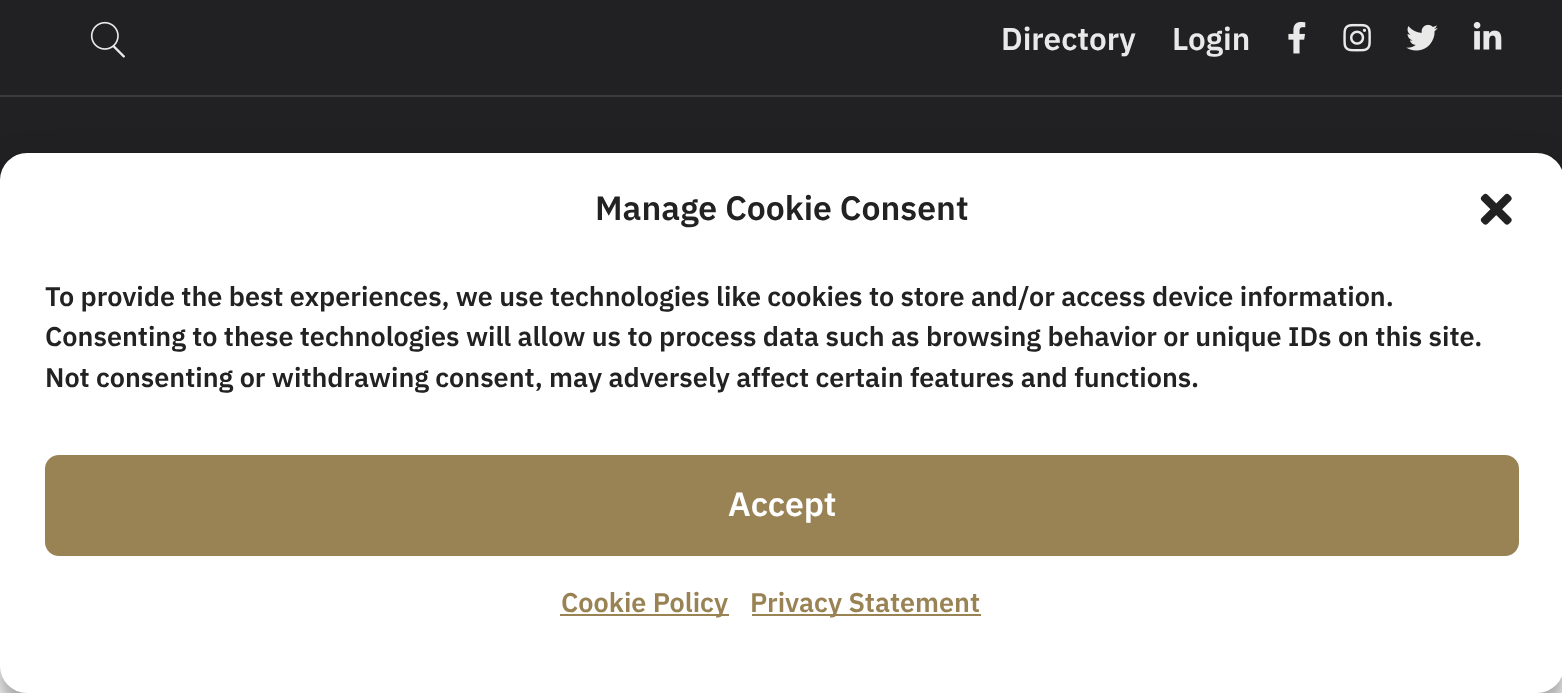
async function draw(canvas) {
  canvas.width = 1562
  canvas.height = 693
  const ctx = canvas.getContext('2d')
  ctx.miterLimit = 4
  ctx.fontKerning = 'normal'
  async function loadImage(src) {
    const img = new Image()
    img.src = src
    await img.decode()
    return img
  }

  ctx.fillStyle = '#fff'
  ctx.fillRect(0, 0, 1562, 693)
  ctx.fillStyle = '#212123'
  ctx.fillRect(0, 0, 1562, 95)
  ctx.fillStyle = '#3b3b3d'
  ctx.fillRect(0, 95, 1562, 2)
  ctx.drawImage(await loadImage('image0.png'), 90, 21, 35, 37)
  ctx.font = '600 31.5px IBM Plex Sans'
  ctx.fillStyle = '#e9e9e9'
  ctx.fillText('Directory', 1001, 50)
  ctx.fillText('Login', 1172, 50)
  ctx.drawImage(await loadImage('image1.png'), 1288, 21, 18, 33)
  ctx.drawImage(await loadImage('image2.png'), 1343, 23, 28, 29)
  ctx.drawImage(await loadImage('image3.png'), 1406, 24, 32, 27)
  ctx.drawImage(await loadImage('image4.png'), 1473, 22, 29, 28)
  ctx.fillStyle = '#212123'
  ctx.fillRect(0, 97, 1562, 83)
  ctx.fillStyle = '#0000003b'
  ctx.filter = 'blur(7px)'
  ctx.beginPath()
  ctx.roundRect(0, 167, 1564, 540, 27)
  ctx.fill()
  ctx.filter = 'none'
  ctx.fillStyle = '#00000030'
  ctx.filter = 'blur(22.5px)'
  ctx.beginPath()
  ctx.roundRect(0, 176, 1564, 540, 27)
  ctx.fill()
  ctx.filter = 'none'
  ctx.fillStyle = '#fff'
  ctx.beginPath()
  ctx.roundRect(0, 153, 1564, 540, 27)
  ctx.fill()
  ctx.font = '600 33.75px IBM Plex Sans'
  ctx.fillStyle = '#222'
  ctx.fillText('Manage Cookie Consent', 595, 220)
  ctx.drawImage(await loadImage('image5.png'), 1480, 193, 32, 32)
  ctx.font = '600 27px IBM Plex Sans'
  ctx.fillText('To provide the best experiences, we use technologies like cookies to store and/or access device information.', 45, 306)
  ctx.fillText('Consenting to these technologies will allow us to process data such as browsing behavior or unique IDs on this site.', 45, 346)
  ctx.fillText('Not consenting or withdrawing consent, may adversely affect certain features and functions.', 45, 387)
  ctx.fillStyle = '#998354'
  ctx.beginPath()
  ctx.roundRect(46, 456, 1472, 99, 13)
  ctx.fill()
  ctx.strokeStyle = '#998354'
  ctx.lineWidth = 2
  ctx.stroke()
  ctx.font = '600 33.75px IBM Plex Sans'
  ctx.fillStyle = '#fff'
  ctx.fillText('Accept', 728, 516)
  ctx.fillStyle = '#998354'
  ctx.fillRect(560, 614, 169, 2)
  ctx.font = '600 27px IBM Plex Sans'
  ctx.fillText('Cookie Policy', 561, 612)
  ctx.fillRect(752, 614, 229, 2)
  ctx.fillText('Privacy Statement', 750, 612)
}

draw(document.querySelector('canvas'))
